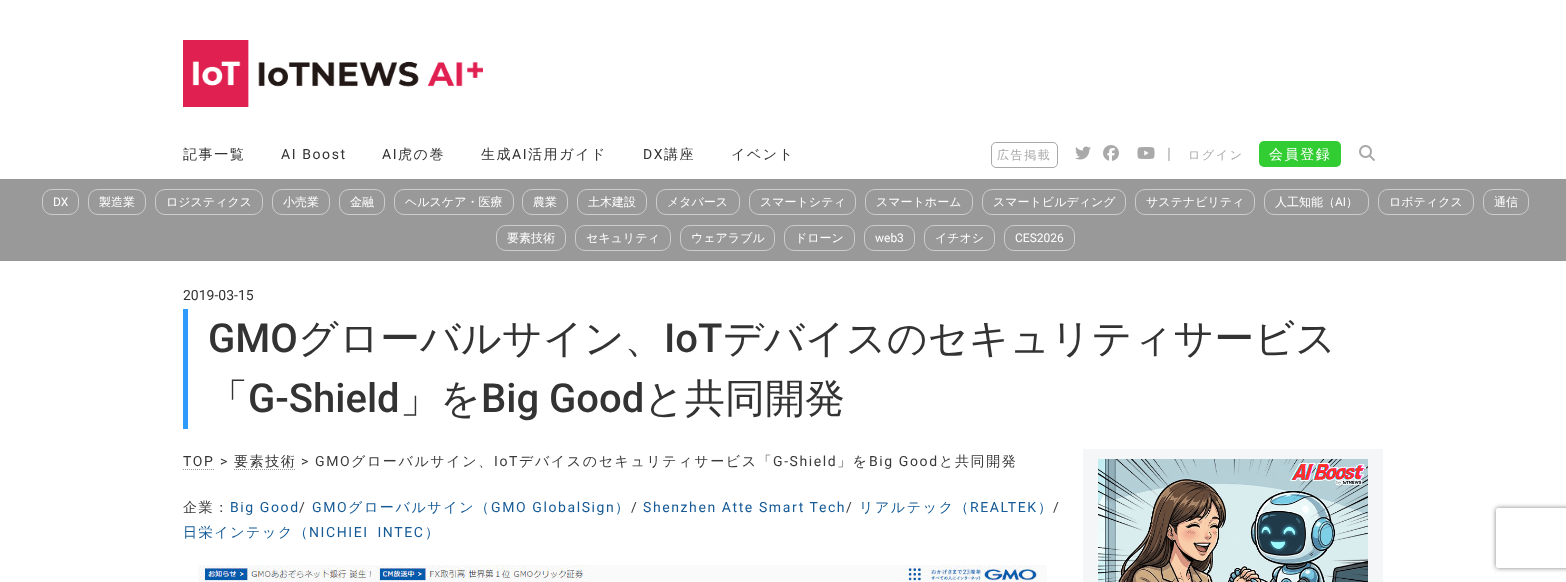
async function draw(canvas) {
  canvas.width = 1566
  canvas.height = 582
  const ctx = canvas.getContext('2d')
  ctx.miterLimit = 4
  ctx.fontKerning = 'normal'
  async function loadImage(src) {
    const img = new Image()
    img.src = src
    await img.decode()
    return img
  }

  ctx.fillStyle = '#fff'
  ctx.fillRect(0, 0, 1566, 582)
  ctx.drawImage(await loadImage('image0.png'), 183, 40, 300, 67)
  ctx.letterSpacing = '1.6px'
  ctx.font = '500 14px WenQuanYi Zen Hei'
  ctx.fillStyle = '#333'
  ctx.fillText('記事一覧', 183, 159)
  ctx.font = '14px Roboto'
  ctx.fillText('AI Boost', 281, 159)
  ctx.fillText('AI', 382, 159)
  ctx.font = '500 14px WenQuanYi Zen Hei'
  ctx.fillText('虎の巻', 398, 159)
  ctx.fillText('生成', 481, 159)
  ctx.font = '14px Roboto'
  ctx.fillText('AI', 512, 159)
  ctx.font = '500 14px WenQuanYi Zen Hei'
  ctx.fillText('活用ガイド', 528, 159)
  ctx.font = '14px Roboto'
  ctx.fillText('DX', 643, 159)
  ctx.font = '500 14px WenQuanYi Zen Hei'
  ctx.fillText('講座', 664, 159)
  ctx.fillText('イベント', 731, 159)
  ctx.beginPath()
  ctx.roundRect(991.5, 142.5, 66, 25, 4.5)
  ctx.strokeStyle = '#a9a9a9'
  ctx.stroke()
  ctx.font = '500 12px WenQuanYi Zen Hei'
  ctx.fillStyle = '#a9a9a9'
  ctx.fillText('広告掲載', 997, 159)
  ctx.drawImage(await loadImage('image1.png'), 1075, 146, 16, 14)
  ctx.drawImage(await loadImage('image2.png'), 1103, 145, 16, 16)
  ctx.drawImage(await loadImage('image3.png'), 1137, 147, 18, 12)
  ctx.font = '16px Roboto'
  ctx.fillText('|', 1167, 159)
  ctx.font = '500 12px WenQuanYi Zen Hei'
  ctx.fillText('ログイン', 1188, 159)
  ctx.fillStyle = '#32cd32'
  ctx.beginPath()
  ctx.roundRect(1259, 141, 82, 26, 5)
  ctx.fill()
  ctx.font = '500 14px WenQuanYi Zen Hei'
  ctx.fillStyle = '#fff'
  ctx.fillText('会員登録', 1269, 159)
  ctx.drawImage(await loadImage('image4.png'), 1359, 145, 16, 16)
  ctx.fillStyle = '#999'
  ctx.fillRect(0, 179, 1566, 82)
  ctx.beginPath()
  ctx.roundRect(42.5, 189.5, 36, 25, 9.5)
  ctx.strokeStyle = '#ccc'
  ctx.stroke()
  ctx.letterSpacing = '0px'
  ctx.font = '12px Roboto'
  ctx.fillStyle = '#fff'
  ctx.fillText('DX', 53, 206)
  ctx.beginPath()
  ctx.roundRect(88.5, 189.5, 57, 25, 9.5)
  ctx.stroke()
  ctx.font = '500 12px WenQuanYi Zen Hei'
  ctx.fillText('製造業', 99, 206)
  ctx.beginPath()
  ctx.roundRect(155.5, 189.5, 107, 25, 9.5)
  ctx.stroke()
  ctx.fillText('ロジスティクス', 166, 206)
  ctx.beginPath()
  ctx.roundRect(272.5, 189.5, 57, 25, 9.5)
  ctx.stroke()
  ctx.fillText('小売業', 283, 206)
  ctx.beginPath()
  ctx.roundRect(339.5, 189.5, 45, 25, 9.5)
  ctx.stroke()
  ctx.fillText('金融', 350, 206)
  ctx.beginPath()
  ctx.roundRect(394.5, 189.5, 119, 25, 9.5)
  ctx.stroke()
  ctx.fillText('ヘルスケア・医療', 405, 206)
  ctx.beginPath()
  ctx.roundRect(522.5, 189.5, 45, 25, 9.5)
  ctx.stroke()
  ctx.fillText('農業', 533, 206)
  ctx.beginPath()
  ctx.roundRect(577.5, 189.5, 69, 25, 9.5)
  ctx.stroke()
  ctx.fillText('土木建設', 588, 206)
  ctx.beginPath()
  ctx.roundRect(656.5, 189.5, 83, 25, 9.5)
  ctx.stroke()
  ctx.fillText('メタバース', 667, 206)
  ctx.beginPath()
  ctx.roundRect(749.5, 189.5, 106, 25, 9.5)
  ctx.stroke()
  ctx.fillText('スマートシティ', 760, 206)
  ctx.beginPath()
  ctx.roundRect(865.5, 189.5, 107, 25, 9.5)
  ctx.stroke()
  ctx.fillText('スマートホーム', 876, 206)
  ctx.beginPath()
  ctx.roundRect(982.5, 189.5, 143, 25, 9.5)
  ctx.stroke()
  ctx.fillText('スマートビルディング', 993, 206)
  ctx.beginPath()
  ctx.roundRect(1135.5, 189.5, 119, 25, 9.5)
  ctx.stroke()
  ctx.fillText('サステナビリティ', 1146, 206)
  ctx.beginPath()
  ctx.roundRect(1264.5, 189.5, 104, 25, 9.5)
  ctx.stroke()
  ctx.fillText('人工知能（', 1275, 206)
  ctx.font = '12px Roboto'
  ctx.fillText('AI', 1335, 206)
  ctx.font = '500 12px WenQuanYi Zen Hei'
  ctx.fillText('）', 1346, 206)
  ctx.beginPath()
  ctx.roundRect(1378.5, 189.5, 95, 25, 9.5)
  ctx.stroke()
  ctx.fillText('ロボティクス', 1389, 206)
  ctx.beginPath()
  ctx.roundRect(1483.5, 189.5, 45, 25, 9.5)
  ctx.stroke()
  ctx.fillText('通信', 1494, 206)
  ctx.beginPath()
  ctx.roundRect(496.5, 225.5, 69, 25, 9.5)
  ctx.stroke()
  ctx.fillText('要素技術', 507, 242)
  ctx.beginPath()
  ctx.roundRect(575.5, 225.5, 95, 25, 9.5)
  ctx.stroke()
  ctx.fillText('セキュリティ', 586, 242)
  ctx.beginPath()
  ctx.roundRect(680.5, 225.5, 94, 25, 9.5)
  ctx.stroke()
  ctx.fillText('ウェアラブル', 691, 242)
  ctx.beginPath()
  ctx.roundRect(784.5, 225.5, 70, 25, 9.5)
  ctx.stroke()
  ctx.fillText('ドローン', 795, 242)
  ctx.beginPath()
  ctx.roundRect(864.5, 225.5, 50, 25, 9.5)
  ctx.stroke()
  ctx.font = '12px Roboto'
  ctx.fillText('web3', 875, 242)
  ctx.beginPath()
  ctx.roundRect(924.5, 225.5, 70, 25, 9.5)
  ctx.stroke()
  ctx.font = '500 12px WenQuanYi Zen Hei'
  ctx.fillText('イチオシ', 935, 242)
  ctx.beginPath()
  ctx.roundRect(1004.5, 225.5, 70, 25, 9.5)
  ctx.stroke()
  ctx.font = '12px Roboto'
  ctx.fillText('CES2026', 1015, 242)
  ctx.font = '14px Roboto'
  ctx.fillStyle = '#333'
  ctx.fillText('2019-03-15', 183, 300)
  ctx.fillStyle = '#2e9afe'
  ctx.fillRect(183, 309, 5, 120)
  ctx.font = '500 40px Roboto'
  ctx.fillStyle = '#333'
  ctx.fillText('GMO', 208, 352)
  ctx.font = '500 40px WenQuanYi Zen Hei'
  ctx.fillText('グローバルサイン、', 298, 352)
  ctx.font = '500 40px Roboto'
  ctx.fillText('IoT', 664, 352)
  ctx.font = '500 40px WenQuanYi Zen Hei'
  ctx.fillText('デバイスのセキュリティサービス', 723, 352)
  ctx.fillText('「', 208, 412)
  ctx.font = '500 40px Roboto'
  ctx.fillText('G-Shield', 248, 412)
  ctx.font = '500 40px WenQuanYi Zen Hei'
  ctx.fillText('」を', 400, 412)
  ctx.font = '500 40px Roboto'
  ctx.fillText('Big Good', 481, 412)
  ctx.font = '500 40px WenQuanYi Zen Hei'
  ctx.fillText('と共同開発', 644, 412)
  ctx.letterSpacing = '1.6px'
  ctx.font = '14px Roboto'
  ctx.fillText('TOP', 183, 466)
  ctx.beginPath()
  ctx.moveTo(183, 469.5)
  ctx.lineTo(214, 469.5)
  ctx.strokeStyle = '#999'
  ctx.setLineDash([1, 1])
  ctx.stroke()
  ctx.fillStyle = '#3a3a3a'
  ctx.fillText('>', 220, 466)
  ctx.font = '500 14px WenQuanYi Zen Hei'
  ctx.fillStyle = '#333'
  ctx.fillText('要素技術', 234, 466)
  ctx.beginPath()
  ctx.moveTo(234, 469.5)
  ctx.lineTo(296, 469.5)
  ctx.stroke()
  ctx.font = '14px Roboto'
  ctx.fillStyle = '#3a3a3a'
  ctx.fillText('> GMO', 301, 466)
  ctx.font = '500 14px WenQuanYi Zen Hei'
  ctx.fillText('グローバルサイン、', 351, 466)
  ctx.font = '14px Roboto'
  ctx.fillText('IoT', 494, 466)
  ctx.font = '500 14px WenQuanYi Zen Hei'
  ctx.fillText('デバイスのセキュリティサービス「', 519, 466)
  ctx.font = '14px Roboto'
  ctx.fillText('G-Shield', 773, 466)
  ctx.font = '500 14px WenQuanYi Zen Hei'
  ctx.fillText('」を', 837, 466)
  ctx.font = '14px Roboto'
  ctx.fillText('Big Good', 869, 466)
  ctx.font = '500 14px WenQuanYi Zen Hei'
  ctx.fillText('と共同開発', 939, 466)
  ctx.fillText('企業：', 183, 512)
  ctx.font = '14px Roboto'
  ctx.fillStyle = '#155a96'
  ctx.fillText('Big Good', 230, 512)
  ctx.fillStyle = '#3a3a3a'
  ctx.fillText('/', 299, 512)
  ctx.fillStyle = '#155a96'
  ctx.fillText('GMO', 312, 512)
  ctx.font = '500 14px WenQuanYi Zen Hei'
  ctx.fillText('グローバルサイン（', 348, 512)
  ctx.font = '14px Roboto'
  ctx.fillText('GMO GlobalSign', 491, 512)
  ctx.font = '500 14px WenQuanYi Zen Hei'
  ctx.fillText('）', 615, 512)
  ctx.font = '14px Roboto'
  ctx.fillStyle = '#3a3a3a'
  ctx.fillText('/', 631, 512)
  ctx.fillStyle = '#155a96'
  ctx.fillText('Shenzhen Atte Smart Tech', 643, 512)
  ctx.fillStyle = '#3a3a3a'
  ctx.fillText('/', 846, 512)
  ctx.font = '500 14px WenQuanYi Zen Hei'
  ctx.fillStyle = '#155a96'
  ctx.fillText('リアルテック（', 859, 512)
  ctx.font = '14px Roboto'
  ctx.fillText('REALTEK', 970, 512)
  ctx.font = '500 14px WenQuanYi Zen Hei'
  ctx.fillText('）', 1038, 512)
  ctx.font = '14px Roboto'
  ctx.fillStyle = '#3a3a3a'
  ctx.fillText('/', 1053, 512)
  ctx.font = '500 14px WenQuanYi Zen Hei'
  ctx.fillStyle = '#155a96'
  ctx.fillText('日栄インテック（', 183, 537)
  ctx.font = '14px Roboto'
  ctx.fillText('NICHIEI INTEC', 309, 537)
  ctx.font = '500 14px WenQuanYi Zen Hei'
  ctx.fillText('）', 425, 537)
  ctx.drawImage(await loadImage('image5.png'), 198, 565, 849, 17)
  ctx.fillStyle = '#f4f6f7'
  ctx.fillRect(1083, 449, 300, 133)
  ctx.drawImage(await loadImage('image6.png'), 1098, 459, 270, 123)
  ctx.save()
  ctx.beginPath()
  ctx.moveTo(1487, 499)
  ctx.lineTo(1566, 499)
  ctx.lineTo(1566, 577)
  ctx.lineTo(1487, 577)
  ctx.closePath()
  ctx.moveTo(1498, 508)
  ctx.lineTo(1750, 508)
  ctx.bezierCurveTo(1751, 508, 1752, 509, 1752, 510)
  ctx.lineTo(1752, 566)
  ctx.bezierCurveTo(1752, 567, 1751, 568, 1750, 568)
  ctx.lineTo(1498, 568)
  ctx.bezierCurveTo(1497, 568, 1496, 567, 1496, 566)
  ctx.lineTo(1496, 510)
  ctx.bezierCurveTo(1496, 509, 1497, 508, 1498, 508)
  ctx.closePath()
  ctx.clip('evenodd')
  ctx.fillStyle = '#808080'
  ctx.filter = 'blur(2.5px)'
  ctx.beginPath()
  ctx.roundRect(1496, 508, 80, 60, 2)
  ctx.fill()
  ctx.filter = 'none'
  ctx.restore()
}

draw(document.querySelector('canvas'))
